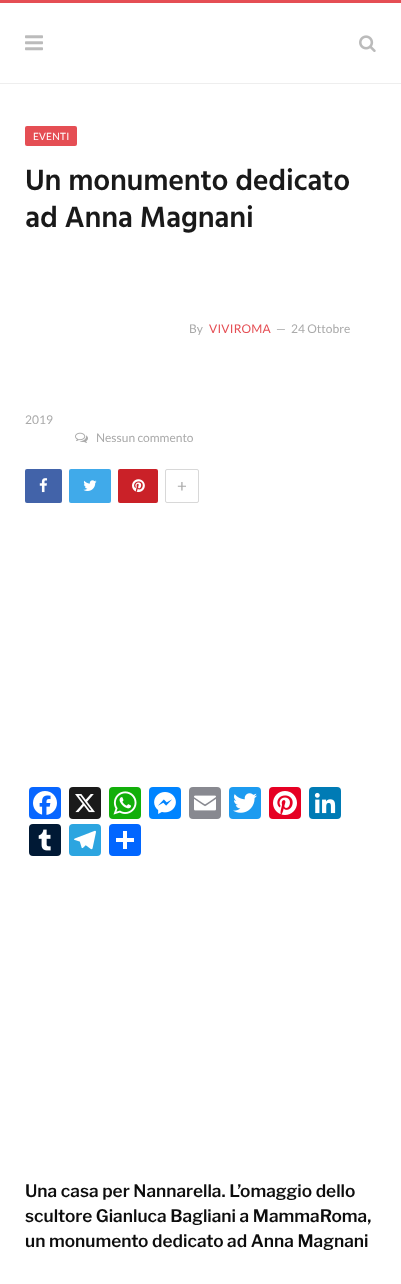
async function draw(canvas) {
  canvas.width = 401
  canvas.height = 1284
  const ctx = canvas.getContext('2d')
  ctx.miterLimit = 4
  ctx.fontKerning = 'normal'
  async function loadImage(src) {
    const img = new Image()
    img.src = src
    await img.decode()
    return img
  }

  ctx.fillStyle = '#fff'
  ctx.fillRect(0, 0, 401, 1284)
  ctx.fillStyle = '#e54e54'
  ctx.fillRect(0, 0, 401, 3)
  ctx.fillStyle = '#eee'
  ctx.fillRect(0, 83, 401, 1)
  ctx.drawImage(await loadImage('image0.png'), 25, 35, 18, 16)
  ctx.drawImage(await loadImage('image1.png'), 359, 35, 17, 17)
  ctx.fillStyle = '#e54e54'
  ctx.beginPath()
  ctx.roundRect(25, 126, 52, 20, 2)
  ctx.fill()
  ctx.letterSpacing = '0.25px'
  ctx.font = '10px Lato'
  ctx.fillStyle = '#fff'
  ctx.fillText('EVENTI', 33, 140)
  ctx.letterSpacing = '-0.3px'
  ctx.font = '600 30px Hind'
  ctx.fillStyle = '#191919'
  ctx.fillText('Un monumento dedicato', 25, 190)
  ctx.fillText('ad Anna Magnani', 25, 227)
  ctx.letterSpacing = '0px'
  ctx.font = '12px Lato'
  ctx.fillStyle = '#aaa'
  ctx.fillText('By', 189, 333)
  ctx.letterSpacing = '0.25px'
  ctx.fillStyle = '#e54e54'
  ctx.fillText('VIVIROMA', 209, 333)
  ctx.letterSpacing = '0px'
  ctx.fillStyle = '#aaa'
  ctx.fillText('—', 276, 333)
  ctx.fillText('24 Ottobre', 291, 333)
  ctx.fillText('2019', 25, 424)
  ctx.drawImage(await loadImage('image2.png'), 75, 432, 13, 11)
  ctx.fillText('Nessun commento', 96, 442)
  ctx.fillStyle = '#4263a9'
  ctx.beginPath()
  ctx.roundRect(25, 469, 37, 34, 2)
  ctx.fill()
  ctx.drawImage(await loadImage('image3.png'), 39, 478, 9, 15)
  ctx.fillStyle = '#40aaea'
  ctx.beginPath()
  ctx.roundRect(69, 469, 42, 34, 2)
  ctx.fill()
  ctx.drawImage(await loadImage('image4.png'), 83, 480, 14, 11)
  ctx.fillStyle = '#ca2128'
  ctx.beginPath()
  ctx.roundRect(118, 469, 40, 34, 2)
  ctx.fill()
  ctx.drawImage(await loadImage('image5.png'), 132, 479, 13, 14)
  ctx.beginPath()
  ctx.roundRect(165.5, 469.5, 33, 33, 1.5)
  ctx.strokeStyle = '#d8d8d8'
  ctx.stroke()
  ctx.font = '17px Lato'
  ctx.fillStyle = '#aaa'
  ctx.fillText('+', 177, 492)
  ctx.fillStyle = '#0866ff'
  ctx.beginPath()
  ctx.roundRect(29, 787, 32, 32, 4)
  ctx.fill()
  ctx.drawImage(await loadImage('image6.png'), 33, 791, 24, 24)
  ctx.fillStyle = '#1a1a1a'
  ctx.beginPath()
  ctx.roundRect(69, 787, 32, 32, 4)
  ctx.fill()
  ctx.drawImage(await loadImage('image7.png'), 75, 794, 20, 19)
  ctx.fillStyle = '#12af0a'
  ctx.beginPath()
  ctx.roundRect(109, 787, 32, 32, 4)
  ctx.fill()
  ctx.drawImage(await loadImage('image8.png'), 113, 791, 24, 24)
  ctx.fillStyle = '#0084ff'
  ctx.beginPath()
  ctx.roundRect(149, 787, 32, 32, 4)
  ctx.fill()
  ctx.drawImage(await loadImage('image9.png'), 154, 792, 22, 22)
  ctx.fillStyle = '#888990'
  ctx.beginPath()
  ctx.roundRect(189, 787, 32, 32, 4)
  ctx.fill()
  ctx.drawImage(await loadImage('image10.png'), 194, 795, 22, 16)
  ctx.fillStyle = '#1d9bf0'
  ctx.beginPath()
  ctx.roundRect(229, 787, 32, 32, 4)
  ctx.fill()
  ctx.drawImage(await loadImage('image11.png'), 233, 793, 24, 20)
  ctx.fillStyle = '#e60023'
  ctx.beginPath()
  ctx.roundRect(269, 787, 32, 32, 4)
  ctx.fill()
  ctx.drawImage(await loadImage('image12.png'), 273, 791, 24, 24)
  ctx.fillStyle = '#007bb5'
  ctx.beginPath()
  ctx.roundRect(309, 787, 32, 32, 4)
  ctx.fill()
  ctx.drawImage(await loadImage('image13.png'), 314, 792, 22, 22)
  ctx.fillStyle = '#001935'
  ctx.beginPath()
  ctx.roundRect(29, 824, 32, 32, 4)
  ctx.fill()
  ctx.drawImage(await loadImage('image14.png'), 38, 829, 13, 22)
  ctx.fillStyle = '#2ca5e0'
  ctx.beginPath()
  ctx.roundRect(69, 824, 32, 32, 4)
  ctx.fill()
  ctx.drawImage(await loadImage('image15.png'), 74, 830, 22, 20)
  ctx.fillStyle = '#0166ff'
  ctx.beginPath()
  ctx.roundRect(109, 824, 32, 32, 4)
  ctx.fill()
  ctx.fillStyle = '#fff'
  ctx.fillRect(123, 831, 4, 18)
  ctx.fillRect(116, 838, 18, 4)
  ctx.font = '600 17.25px Libre Franklin'
  ctx.fillStyle = '#0d0d0d'
  ctx.fillText('Una casa per Nannarella. L’omaggio dello', 25, 1197)
  ctx.fillText('scultore Gianluca Bagliani a MammaRoma,', 25, 1222)
  ctx.fillText('un monumento dedicato ad Anna Magnani', 25, 1247)
}

draw(document.querySelector('canvas'))
